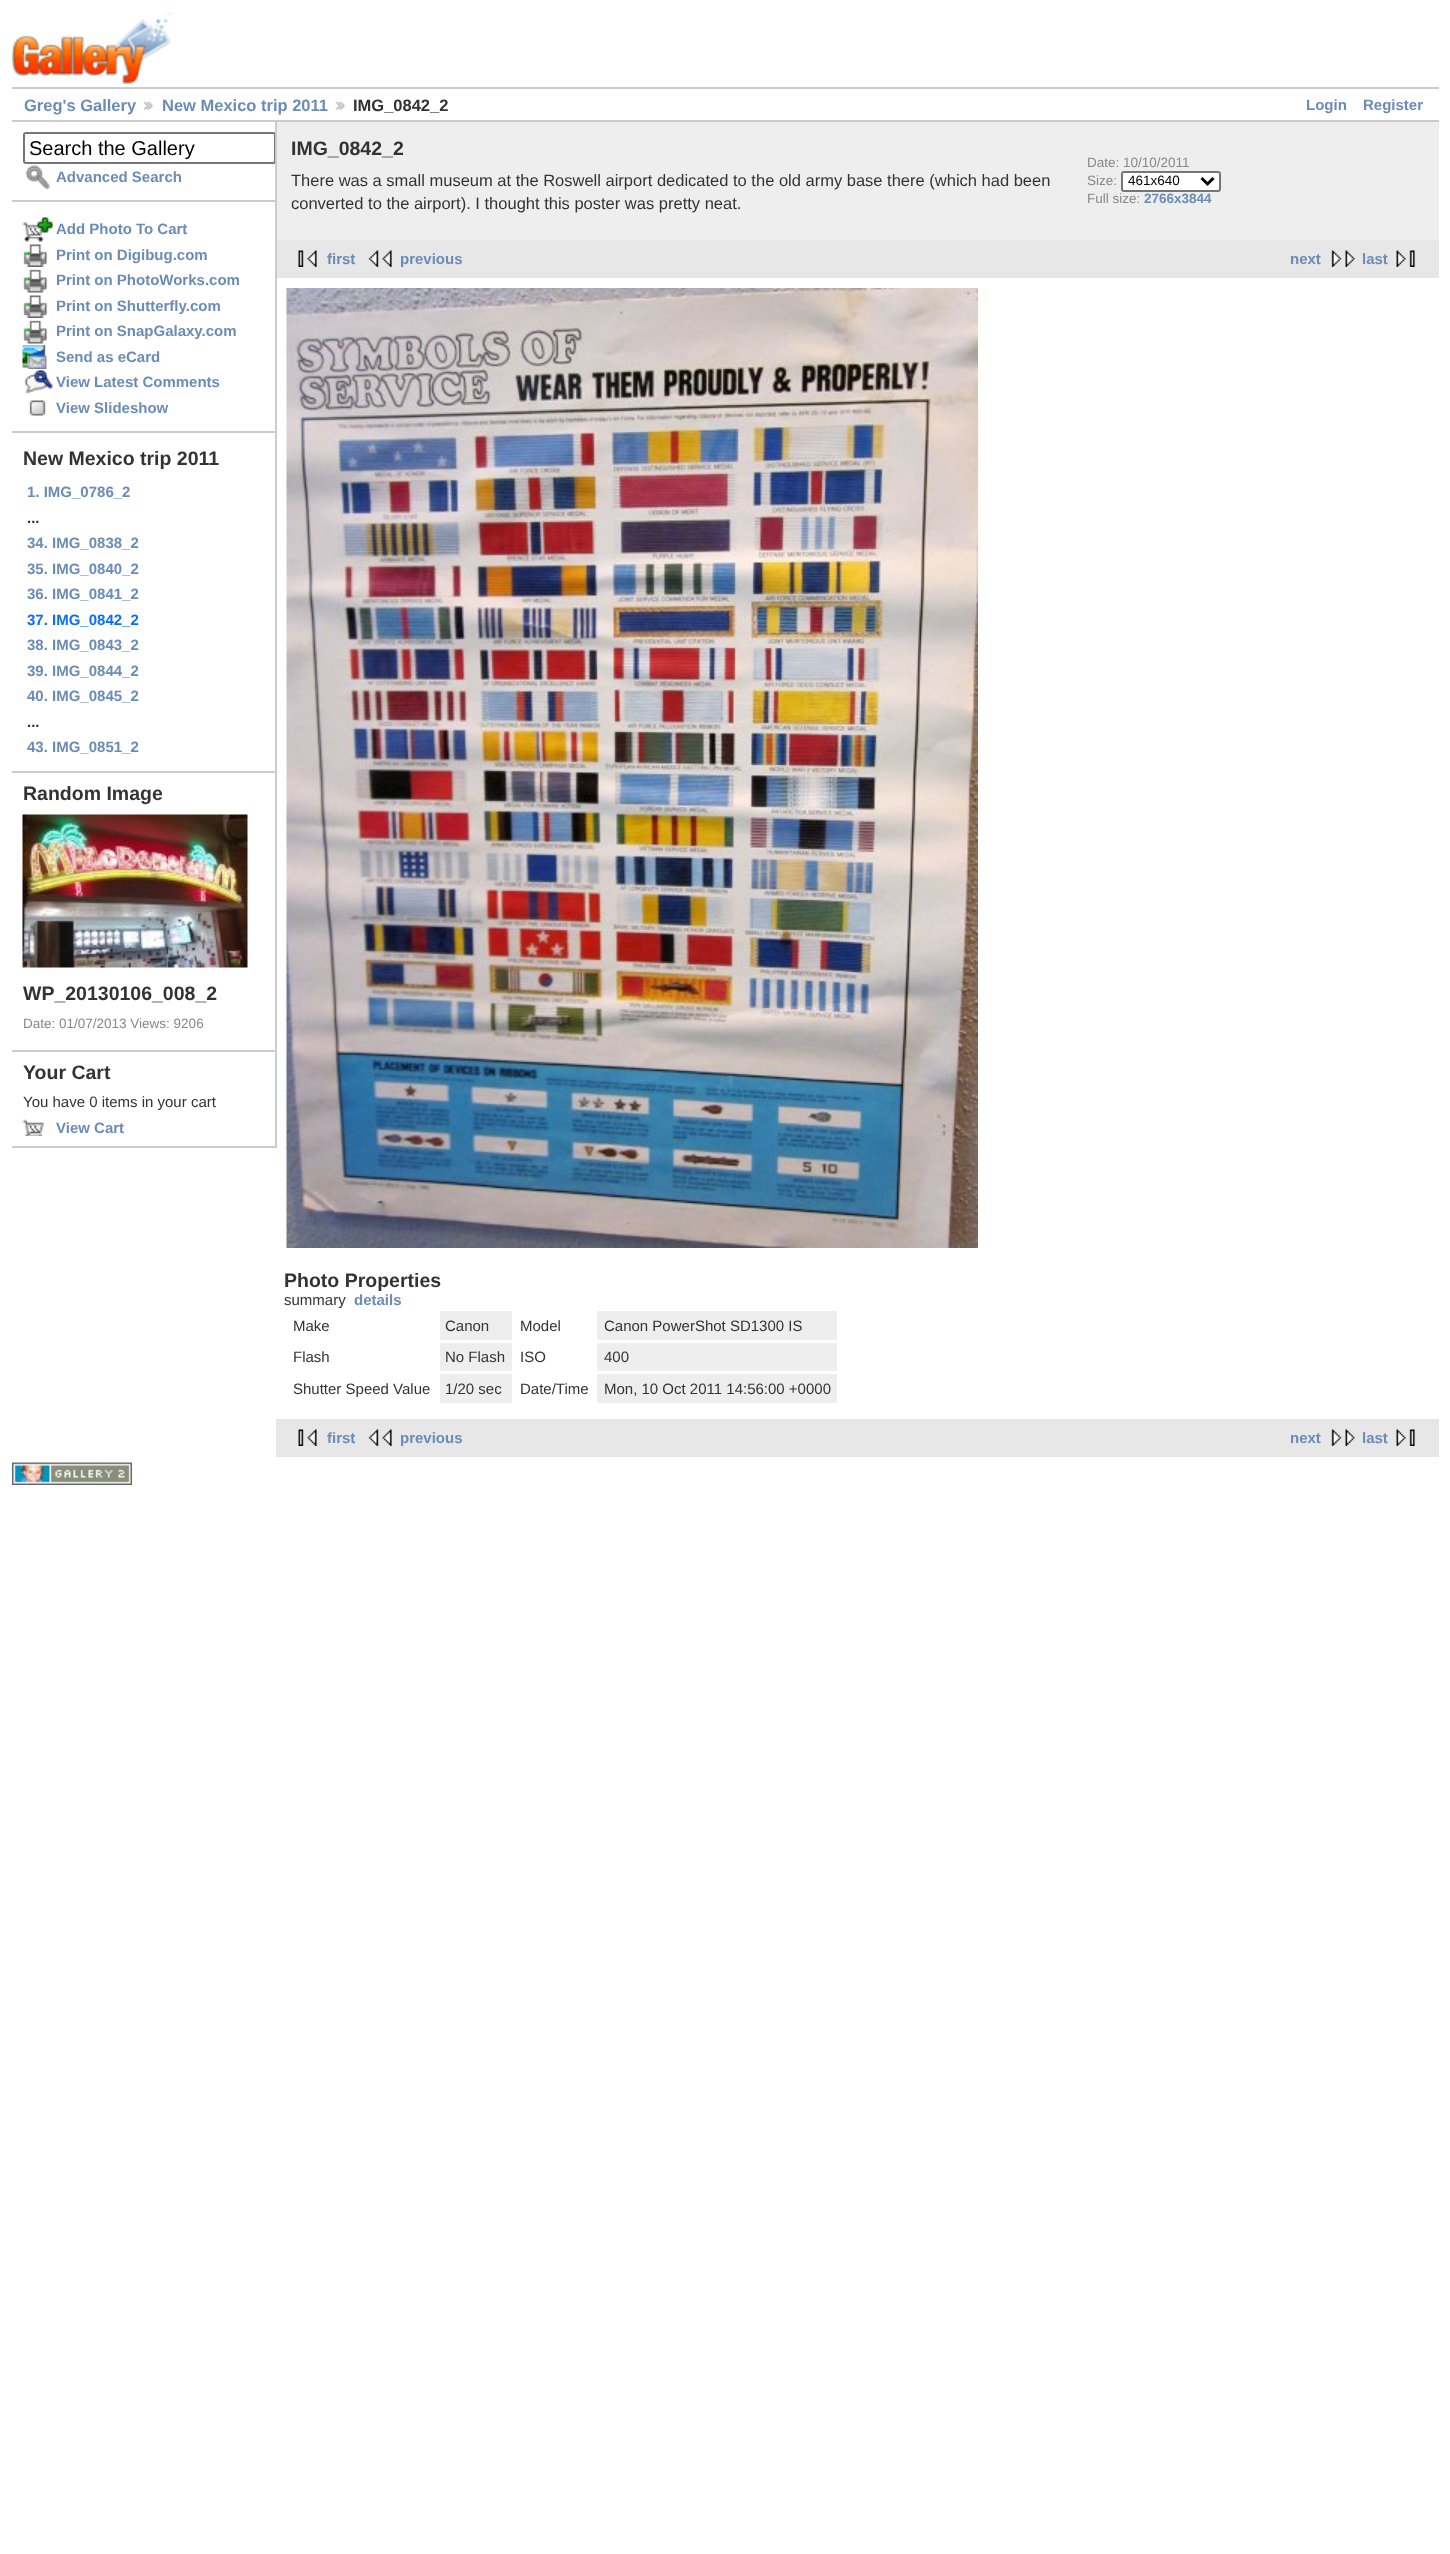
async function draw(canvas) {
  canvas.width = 1450
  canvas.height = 2554
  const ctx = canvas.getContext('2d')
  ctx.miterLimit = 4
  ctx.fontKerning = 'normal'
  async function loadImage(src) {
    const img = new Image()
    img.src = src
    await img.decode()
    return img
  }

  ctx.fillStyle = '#fff'
  ctx.fillRect(0, 0, 1450, 2554)
  ctx.drawImage(await loadImage('image0.png'), 12, 12, 161, 72)
  ctx.fillStyle = '#ccc'
  ctx.fillRect(12, 87, 1427, 2)
  ctx.fillRect(12, 120, 1427, 2)
  ctx.font = 'bold 16.5px Liberation Sans'
  ctx.fillStyle = '#6b8cb7'
  ctx.fillText('Greg\'s Gallery', 24, 111)
  ctx.drawImage(await loadImage('image1.png'), 143, 101, 11, 9)
  ctx.fillText('New Mexico trip 2011', 162, 111)
  ctx.drawImage(await loadImage('image2.png'), 335, 101, 11, 9)
  ctx.fillStyle = '#333'
  ctx.fillText('IMG_0842_2', 353, 111)
  ctx.font = 'bold 15px Liberation Sans'
  ctx.fillStyle = '#6b8cb7'
  ctx.fillText('Login', 1306, 110)
  ctx.fillText('Register', 1363, 110)
  ctx.fillStyle = '#ccc'
  ctx.fillRect(275, 122, 2, 1026)
  ctx.fillRect(12, 200, 263, 2)
  ctx.save()
  ctx.beginPath()
  ctx.rect(12, 122, 263, 1026)
  ctx.clip()
  ctx.beginPath()
  ctx.roundRect(24, 133, 251, 30, 2)
  ctx.strokeStyle = '#767676'
  ctx.lineWidth = 2
  ctx.stroke()
  ctx.restore()
  ctx.font = '20px Liberation Sans'
  ctx.fillStyle = '#000'
  ctx.fillText('Search the Gallery', 29, 155)
  ctx.drawImage(await loadImage('image3.png'), 25, 165, 25, 24)
  ctx.font = 'bold 15px Liberation Sans'
  ctx.fillStyle = '#6b8cb7'
  ctx.fillText('Advanced Search', 56, 182)
  ctx.fillStyle = '#ccc'
  ctx.fillRect(12, 431, 263, 2)
  ctx.drawImage(await loadImage('image4.png'), 22, 217, 31, 25)
  ctx.fillStyle = '#6b8cb7'
  ctx.fillText('Add Photo To Cart', 56, 234)
  ctx.drawImage(await loadImage('image5.png'), 23, 244, 25, 23)
  ctx.fillText('Print on Digibug.com', 56, 260)
  ctx.drawImage(await loadImage('image6.png'), 23, 269, 25, 24)
  ctx.fillText('Print on PhotoWorks.com', 56, 285)
  ctx.drawImage(await loadImage('image5.png'), 23, 295, 25, 23)
  ctx.fillText('Print on Shutterfly.com', 56, 311)
  ctx.drawImage(await loadImage('image6.png'), 23, 320, 25, 24)
  ctx.fillText('Print on SnapGalaxy.com', 56, 336)
  ctx.drawImage(await loadImage('image7.png'), 22, 345, 25, 24)
  ctx.fillText('Send as eCard', 56, 362)
  ctx.drawImage(await loadImage('image8.png'), 24, 370, 29, 24)
  ctx.fillText('View Latest Comments', 56, 387)
  ctx.drawImage(await loadImage('image9.png'), 29, 400, 17, 16)
  ctx.fillText('View Slideshow', 56, 413)
  ctx.fillStyle = '#ccc'
  ctx.fillRect(12, 771, 263, 2)
  ctx.font = 'bold 19.5px Liberation Sans'
  ctx.fillStyle = '#333'
  ctx.fillText('New Mexico trip 2011', 23, 465)
  ctx.font = 'bold 15px Liberation Sans'
  ctx.fillStyle = '#6b8cb7'
  ctx.fillText('1. IMG_0786_2', 27, 497)
  ctx.fillStyle = '#333'
  ctx.fillText('...', 27, 523)
  ctx.fillStyle = '#6b8cb7'
  ctx.fillText('34. IMG_0838_2', 27, 548)
  ctx.fillText('35. IMG_0840_2', 27, 574)
  ctx.fillText('36. IMG_0841_2', 27, 599)
  ctx.fillStyle = '#0b6cff'
  ctx.fillText('37. IMG_0842_2', 27, 625)
  ctx.fillStyle = '#6b8cb7'
  ctx.fillText('38. IMG_0843_2', 27, 650)
  ctx.fillText('39. IMG_0844_2', 27, 676)
  ctx.fillText('40. IMG_0845_2', 27, 701)
  ctx.fillStyle = '#333'
  ctx.fillText('...', 27, 727)
  ctx.fillStyle = '#6b8cb7'
  ctx.fillText('43. IMG_0851_2', 27, 752)
  ctx.fillStyle = '#ccc'
  ctx.fillRect(12, 1050, 263, 2)
  ctx.font = 'bold 19.5px Liberation Sans'
  ctx.fillStyle = '#333'
  ctx.fillText('Random Image', 23, 800)
  ctx.drawImage(await loadImage('image10.png'), 22, 814, 226, 154)
  ctx.fillText('WP_20130106_008_2', 23, 1000)
  ctx.font = '13.5px Liberation Sans'
  ctx.fillStyle = '#888'
  ctx.fillText('Date: 01/07/2013 Views: 9206', 23, 1028)
  ctx.fillStyle = '#ccc'
  ctx.fillRect(12, 1146, 263, 2)
  ctx.font = 'bold 19.5px Liberation Sans'
  ctx.fillStyle = '#333'
  ctx.fillText('Your Cart', 23, 1079)
  ctx.font = '15px Liberation Sans'
  ctx.fillText('You have 0 items in your cart', 23, 1107)
  ctx.drawImage(await loadImage('image11.png'), 22, 1119, 22, 17)
  ctx.font = 'bold 15px Liberation Sans'
  ctx.fillStyle = '#6b8cb7'
  ctx.fillText('View Cart', 56, 1133)
  ctx.fillStyle = '#eee'
  ctx.fillRect(277, 122, 1162, 118)
  ctx.font = 'bold 19.5px Liberation Sans'
  ctx.fillStyle = '#333'
  ctx.fillText('IMG_0842_2', 291, 155)
  ctx.font = '16.5px Liberation Sans'
  ctx.fillText('There was a small museum at the Roswell airport dedicated to the old army base there (which had been', 291, 186)
  ctx.fillText('converted to the airport). I thought this poster was pretty neat.', 291, 209)
  ctx.font = '13.5px Liberation Sans'
  ctx.fillStyle = '#888'
  ctx.fillText('Date: 10/10/2011', 1087, 167)
  ctx.fillText('Size:', 1087, 185)
  ctx.fillStyle = '#fff'
  ctx.beginPath()
  ctx.roundRect(1122, 172, 98, 19, 2)
  ctx.fill()
  ctx.strokeStyle = '#767676'
  ctx.lineWidth = 2
  ctx.stroke()
  ctx.beginPath()
  ctx.moveTo(1201.5, 178)
  ctx.lineTo(1207.5, 184)
  ctx.lineTo(1213.5, 178)
  ctx.strokeStyle = '#000'
  ctx.lineWidth = 3
  ctx.stroke()
  ctx.fillStyle = '#000'
  ctx.fillText('461x640', 1128, 185)
  ctx.fillStyle = '#888'
  ctx.fillText('Full size:', 1087, 203)
  ctx.font = 'bold 13.5px Liberation Sans'
  ctx.fillStyle = '#6b8cb7'
  ctx.fillText('2766x3844', 1144, 203)
  ctx.fillStyle = '#e7e7e7'
  ctx.fillRect(277, 240, 1162, 38)
  ctx.drawImage(await loadImage('image12.png'), 298, 250, 19, 17)
  ctx.font = 'bold 15px Liberation Sans'
  ctx.fillStyle = '#6b8cb7'
  ctx.fillText('first', 327, 264)
  ctx.drawImage(await loadImage('image13.png'), 368, 250, 24, 17)
  ctx.fillText('previous', 400, 264)
  ctx.fillText('next', 1290, 264)
  ctx.drawImage(await loadImage('image14.png'), 1331, 250, 24, 17)
  ctx.fillText('last', 1362, 264)
  ctx.drawImage(await loadImage('image15.png'), 1396, 250, 19, 17)
  ctx.drawImage(await loadImage('image16.png'), 286, 288, 692, 960)
  ctx.font = 'bold 19.5px Liberation Sans'
  ctx.fillStyle = '#333'
  ctx.fillText('Photo Properties', 284, 1287)
  ctx.font = '15px Liberation Sans'
  ctx.fillText('summary', 284, 1305)
  ctx.font = 'bold 15px Liberation Sans'
  ctx.fillStyle = '#6b8cb7'
  ctx.fillText('details', 354, 1305)
  ctx.font = '15px Liberation Sans'
  ctx.fillStyle = '#333'
  ctx.fillText('Make', 293, 1331)
  ctx.fillStyle = '#eee'
  ctx.fillRect(440, 1311, 72, 29)
  ctx.fillStyle = '#333'
  ctx.fillText('Canon', 445, 1331)
  ctx.fillText('Model', 520, 1331)
  ctx.fillStyle = '#eee'
  ctx.fillRect(597, 1311, 240, 29)
  ctx.fillStyle = '#333'
  ctx.fillText('Canon PowerShot SD1300 IS', 604, 1331)
  ctx.fillText('Flash', 293, 1362)
  ctx.fillStyle = '#eee'
  ctx.fillRect(440, 1343, 72, 28)
  ctx.fillStyle = '#333'
  ctx.fillText('No Flash', 445, 1362)
  ctx.fillText('ISO', 520, 1362)
  ctx.fillStyle = '#eee'
  ctx.fillRect(597, 1343, 240, 28)
  ctx.fillStyle = '#333'
  ctx.fillText('400', 604, 1362)
  ctx.fillText('Shutter Speed Value', 293, 1394)
  ctx.fillStyle = '#eee'
  ctx.fillRect(440, 1374, 72, 29)
  ctx.fillStyle = '#333'
  ctx.fillText('1/20 sec', 445, 1394)
  ctx.fillText('Date/Time', 520, 1394)
  ctx.fillStyle = '#eee'
  ctx.fillRect(597, 1374, 240, 29)
  ctx.fillStyle = '#333'
  ctx.fillText('Mon, 10 Oct 2011 14:56:00 +0000', 604, 1394)
  ctx.fillStyle = '#e7e7e7'
  ctx.fillRect(276, 1419, 1163, 38)
  ctx.drawImage(await loadImage('image12.png'), 298, 1429, 19, 17)
  ctx.font = 'bold 15px Liberation Sans'
  ctx.fillStyle = '#6b8cb7'
  ctx.fillText('first', 327, 1443)
  ctx.drawImage(await loadImage('image13.png'), 368, 1429, 24, 17)
  ctx.fillText('previous', 400, 1443)
  ctx.fillText('next', 1290, 1443)
  ctx.drawImage(await loadImage('image14.png'), 1331, 1429, 24, 17)
  ctx.fillText('last', 1362, 1443)
  ctx.drawImage(await loadImage('image15.png'), 1396, 1429, 19, 17)
  ctx.drawImage(await loadImage('image17.png'), 12, 1462, 120, 23)
}

draw(document.querySelector('canvas'))
